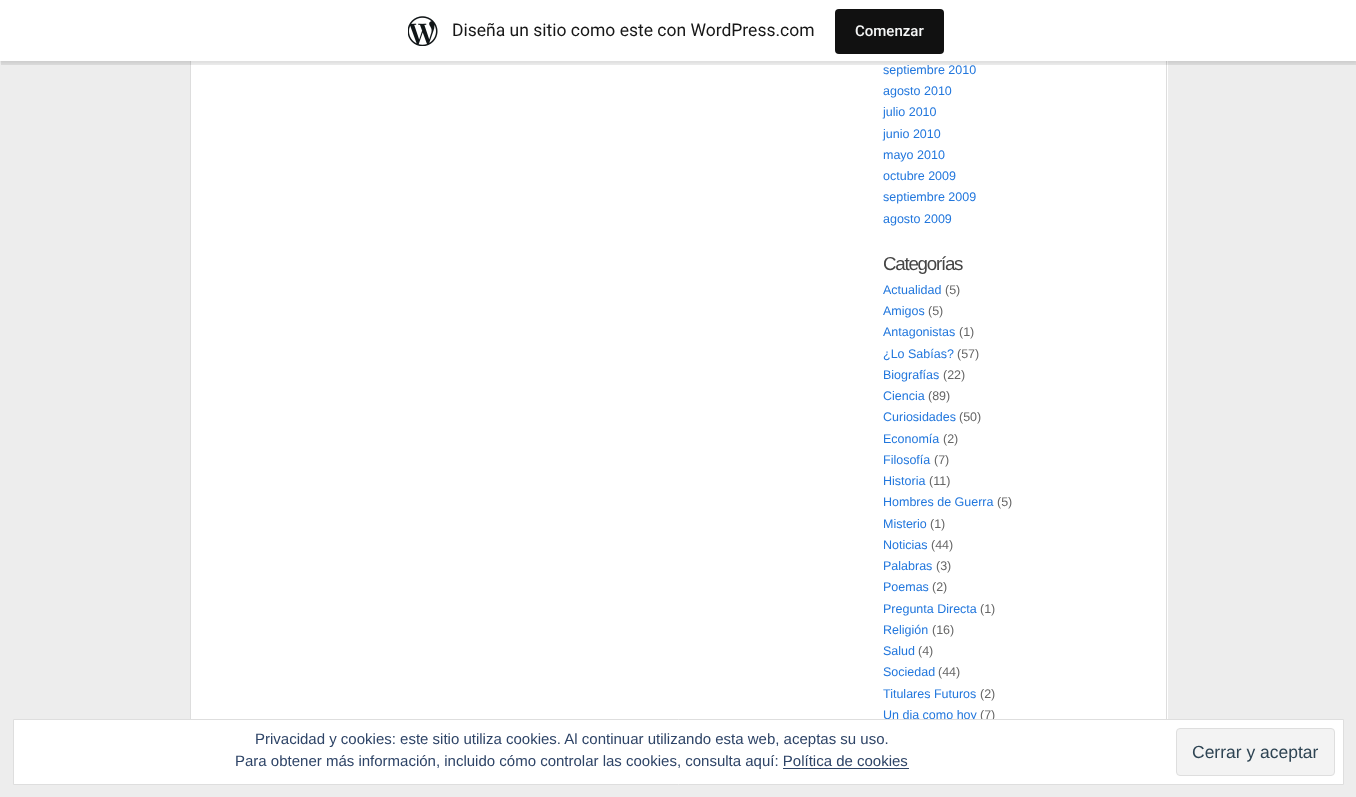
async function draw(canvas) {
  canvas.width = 1356
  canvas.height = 797
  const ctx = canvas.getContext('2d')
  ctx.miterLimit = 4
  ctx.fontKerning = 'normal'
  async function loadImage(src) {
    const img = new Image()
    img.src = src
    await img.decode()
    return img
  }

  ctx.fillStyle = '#ededed'
  ctx.fillRect(0, 0, 1356, 797)
  ctx.fillStyle = '#fff'
  ctx.fillRect(191, 61, 977, 658)
  ctx.fillStyle = '#ddd'
  ctx.fillRect(1166, 61, 1, 658)
  ctx.fillRect(190, 61, 1, 658)
  ctx.fillStyle = '#0000000d'
  ctx.filter = 'blur(1px)'
  ctx.beginPath()
  ctx.rect(0, 1, 1356, 62)
  ctx.fill()
  ctx.filter = 'none'
  ctx.fillStyle = '#00000014'
  ctx.beginPath()
  ctx.moveTo(1, 61)
  ctx.lineTo(1, 65)
  ctx.lineTo(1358, 65)
  ctx.lineTo(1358, 4)
  ctx.lineTo(1356, 4)
  ctx.lineTo(1356, 61)
  ctx.closePath()
  ctx.fill()
  ctx.fillStyle = '#fff'
  ctx.fillRect(0, 0, 1356, 61)
  ctx.drawImage(await loadImage('image0.png'), 408, 16, 30, 30)
  ctx.font = '17.5px Roboto'
  ctx.fillStyle = '#171717'
  ctx.fillText('Diseña un sitio como este con WordPress.com', 452, 36)
  ctx.fillStyle = '#111'
  ctx.beginPath()
  ctx.roundRect(835, 9, 109, 45, 4)
  ctx.fill()
  ctx.font = '500 15px Roboto'
  ctx.fillStyle = '#f6f7f7'
  ctx.fillText('Comenzar', 855, 36)
  ctx.font = '12.5px Liberation Sans'
  ctx.fillStyle = '#27d'
  ctx.fillText('septiembre 2010', 883, 74)
  ctx.fillText('agosto 2010', 883, 95)
  ctx.fillText('julio 2010', 883, 116)
  ctx.fillText('junio 2010', 883, 138)
  ctx.fillText('mayo 2010', 883, 159)
  ctx.fillText('octubre 2009', 883, 180)
  ctx.fillText('septiembre 2009', 883, 201)
  ctx.fillText('agosto 2009', 883, 223)
  ctx.letterSpacing = '-1.25px'
  ctx.font = '18.75px Liberation Sans'
  ctx.fillStyle = '#444'
  ctx.fillText('Categorías', 883, 270)
  ctx.letterSpacing = '0px'
  ctx.font = '12.5px Liberation Sans'
  ctx.fillStyle = '#27d'
  ctx.fillText('Actualidad', 883, 294)
  ctx.fillStyle = '#666'
  ctx.fillText('(5)', 945, 294)
  ctx.fillStyle = '#27d'
  ctx.fillText('Amigos', 883, 315)
  ctx.fillStyle = '#666'
  ctx.fillText('(5)', 928, 315)
  ctx.fillStyle = '#27d'
  ctx.fillText('Antagonistas', 883, 336)
  ctx.fillStyle = '#666'
  ctx.fillText('(1)', 959, 336)
  ctx.fillStyle = '#27d'
  ctx.fillText('¿Lo Sabías?', 883, 358)
  ctx.fillStyle = '#666'
  ctx.fillText('(57)', 957, 358)
  ctx.fillStyle = '#27d'
  ctx.fillText('Biografías', 883, 379)
  ctx.fillStyle = '#666'
  ctx.fillText('(22)', 943, 379)
  ctx.fillStyle = '#27d'
  ctx.fillText('Ciencia', 883, 400)
  ctx.fillStyle = '#666'
  ctx.fillText('(89)', 928, 400)
  ctx.fillStyle = '#27d'
  ctx.fillText('Curiosidades', 883, 421)
  ctx.fillStyle = '#666'
  ctx.fillText('(50)', 959, 421)
  ctx.fillStyle = '#27d'
  ctx.fillText('Economía', 883, 443)
  ctx.fillStyle = '#666'
  ctx.fillText('(2)', 943, 443)
  ctx.fillStyle = '#27d'
  ctx.fillText('Filosofía', 883, 464)
  ctx.fillStyle = '#666'
  ctx.fillText('(7)', 934, 464)
  ctx.fillStyle = '#27d'
  ctx.fillText('Historia', 883, 485)
  ctx.fillStyle = '#666'
  ctx.fillText('(11)', 929, 485)
  ctx.fillStyle = '#27d'
  ctx.fillText('Hombres de Guerra', 883, 506)
  ctx.fillStyle = '#666'
  ctx.fillText('(5)', 997, 506)
  ctx.fillStyle = '#27d'
  ctx.fillText('Misterio', 883, 528)
  ctx.fillStyle = '#666'
  ctx.fillText('(1)', 930, 528)
  ctx.fillStyle = '#27d'
  ctx.fillText('Noticias', 883, 549)
  ctx.fillStyle = '#666'
  ctx.fillText('(44)', 931, 549)
  ctx.fillStyle = '#27d'
  ctx.fillText('Palabras', 883, 570)
  ctx.fillStyle = '#666'
  ctx.fillText('(3)', 936, 570)
  ctx.fillStyle = '#27d'
  ctx.fillText('Poemas', 883, 591)
  ctx.fillStyle = '#666'
  ctx.fillText('(2)', 932, 591)
  ctx.fillStyle = '#27d'
  ctx.fillText('Pregunta Directa', 883, 613)
  ctx.fillStyle = '#666'
  ctx.fillText('(1)', 980, 613)
  ctx.fillStyle = '#27d'
  ctx.fillText('Religión', 883, 634)
  ctx.fillStyle = '#666'
  ctx.fillText('(16)', 932, 634)
  ctx.fillStyle = '#27d'
  ctx.fillText('Salud', 883, 655)
  ctx.fillStyle = '#666'
  ctx.fillText('(4)', 918, 655)
  ctx.fillStyle = '#27d'
  ctx.fillText('Sociedad', 883, 676)
  ctx.fillStyle = '#666'
  ctx.fillText('(44)', 938, 676)
  ctx.fillStyle = '#27d'
  ctx.fillText('Titulares Futuros', 883, 698)
  ctx.fillStyle = '#666'
  ctx.fillText('(2)', 980, 698)
  ctx.fillStyle = '#27d'
  ctx.fillText('Un dia como hoy', 883, 719)
  ctx.fillStyle = '#666'
  ctx.fillText('(7)', 980, 719)
  ctx.fillStyle = '#fff'
  ctx.beginPath()
  ctx.rect(13.5, 719.5, 1330, 65)
  ctx.fill()
  ctx.strokeStyle = '#dedede'
  ctx.stroke()
  ctx.font = '15px Liberation Sans'
  ctx.fillStyle = '#2e4467'
  ctx.fillText('Privacidad y cookies: este sitio utiliza cookies. Al continuar utilizando esta web, aceptas su uso.', 255, 744)
  ctx.fillText('Para obtener más información, incluido cómo controlar las cookies, consulta aquí: Política de cookies', 235, 766)
  ctx.fillStyle = '#f3f3f3'
  ctx.beginPath()
  ctx.roundRect(1176.5, 728.5, 158, 47, 3.5)
  ctx.fill()
  ctx.stroke()
  ctx.font = '17.5px Liberation Sans'
  ctx.fillStyle = '#2e4453'
  ctx.fillText('Cerrar y aceptar', 1192, 758)
  ctx.fillStyle = '#2e4467'
  ctx.fillRect(783, 768, 126, 1)
}

draw(document.querySelector('canvas'))
